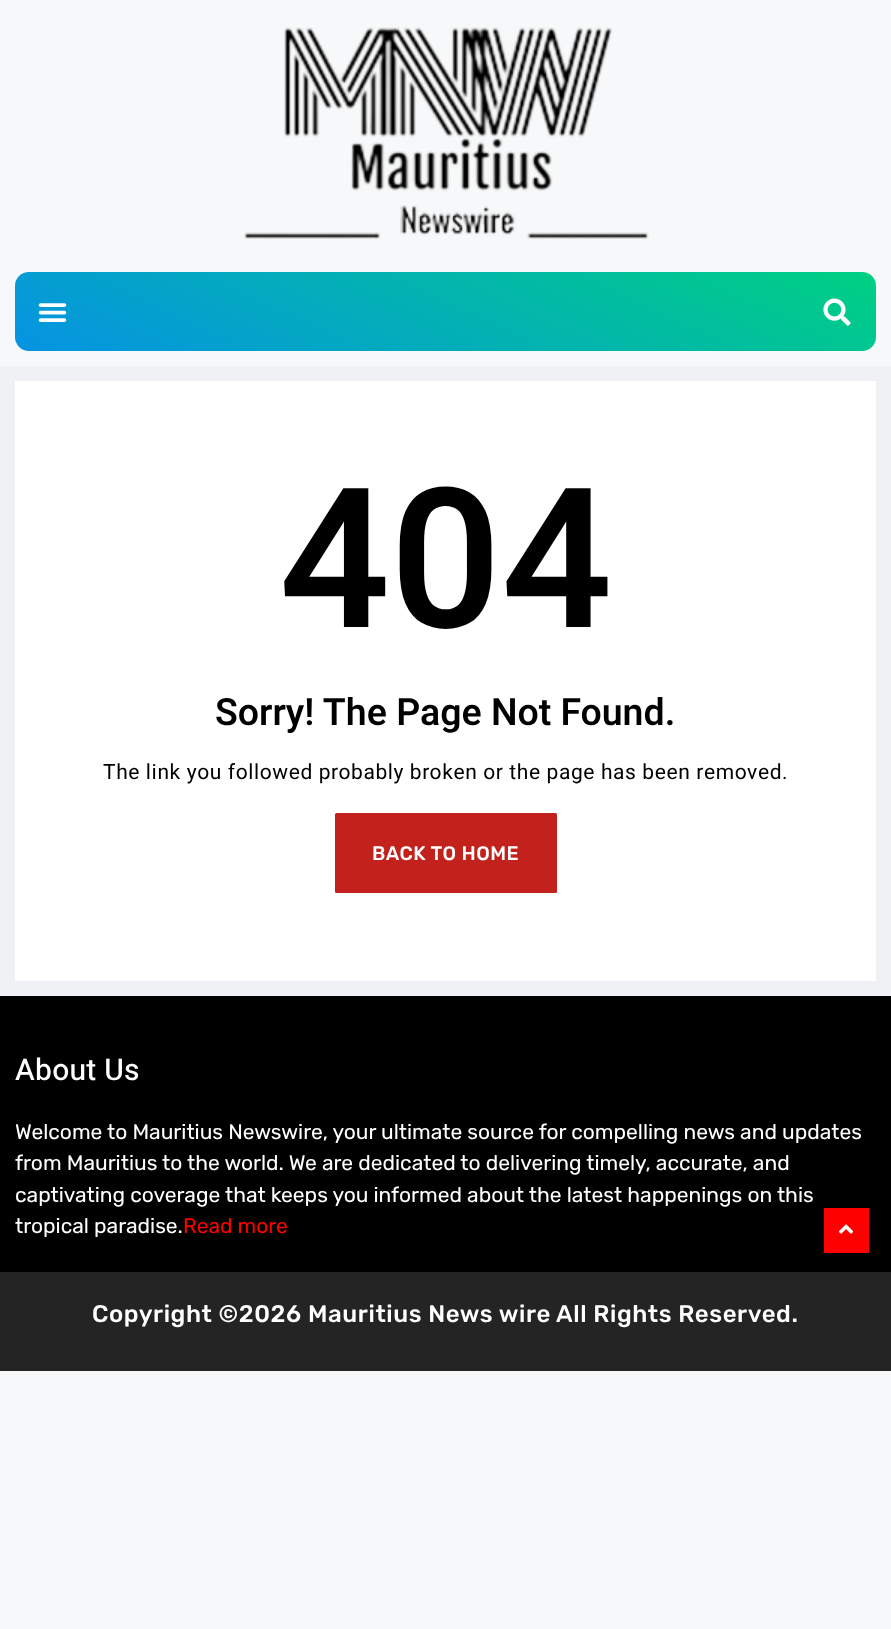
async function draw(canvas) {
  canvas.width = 891
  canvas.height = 1629
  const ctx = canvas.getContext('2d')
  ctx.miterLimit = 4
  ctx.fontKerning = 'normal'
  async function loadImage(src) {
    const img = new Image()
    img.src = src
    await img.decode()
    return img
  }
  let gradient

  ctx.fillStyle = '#f7f8f9'
  ctx.fillRect(0, 0, 891, 1629)
  ctx.drawImage(await loadImage('image0.png'), 244, 27, 405, 212)
  gradient = ctx.createLinearGradient(538, 114, 353, 509)
  gradient.addColorStop(0, '#00d082')
  gradient.addColorStop(1, '#0693e3')
  ctx.fillStyle = gradient
  ctx.beginPath()
  ctx.roundRect(15, 272, 861, 79, 14)
  ctx.fill()
  ctx.drawImage(await loadImage('image1.png'), 38, 303, 29, 19)
  ctx.drawImage(await loadImage('image2.png'), 823, 298, 28, 28)
  ctx.fillStyle = '#f0f1f4'
  ctx.fillRect(0, 366, 891, 630)
  ctx.fillStyle = '#fff'
  ctx.fillRect(15, 381, 861, 600)
  ctx.font = '600 195px Heebo'
  ctx.fillStyle = '#000'
  ctx.fillText('404', 279, 627)
  ctx.font = '600 37.5px Heebo'
  ctx.fillText('Sorry! The Page Not Found.', 215, 725)
  ctx.letterSpacing = '0.6px'
  ctx.font = '21px Heebo'
  ctx.fillText('The link you followed probably broken or the page has been removed.', 103, 779)
  ctx.fillStyle = '#c2211c'
  ctx.beginPath()
  ctx.roundRect(335, 813, 222, 80, 1.5)
  ctx.fill()
  ctx.letterSpacing = '0.5px'
  ctx.font = '500 19.5px Rubik'
  ctx.fillStyle = '#fff'
  ctx.fillText('BACK TO HOME', 372, 860)
  ctx.fillStyle = '#000'
  ctx.fillRect(0, 996, 891, 276)
  ctx.letterSpacing = '0.25px'
  ctx.font = '500 30px Heebo'
  ctx.fillStyle = '#fff'
  ctx.fillText('About Us', 15, 1080)
  ctx.letterSpacing = '0px'
  ctx.font = '21px Rubik'
  ctx.fillText('Welcome to Mauritius Newswire, your ultimate source for compelling news and updates', 15, 1139)
  ctx.fillText('from Mauritius to the world. We are dedicated to delivering timely, accurate, and', 15, 1170)
  ctx.fillText('captivating coverage that keeps you informed about the latest happenings on this', 15, 1202)
  ctx.fillText('tropical paradise.', 15, 1233)
  ctx.fillStyle = '#f00'
  ctx.fillText('Read more', 183, 1233)
  ctx.fillStyle = '#242424'
  ctx.fillRect(0, 1272, 891, 99)
  ctx.fillStyle = '#f00'
  ctx.fillRect(824, 1208, 45, 45)
  ctx.drawImage(await loadImage('image3.png'), 839, 1224, 15, 10)
  ctx.letterSpacing = '0.6px'
  ctx.font = '500 24px Rubik'
  ctx.fillStyle = '#fff'
  ctx.fillText('Copyright ©2026', 92, 1322)
  ctx.fillText('Mauritius News wire', 308, 1322)
  ctx.fillText('All Rights Reserved.', 556, 1322)
}

draw(document.querySelector('canvas'))
